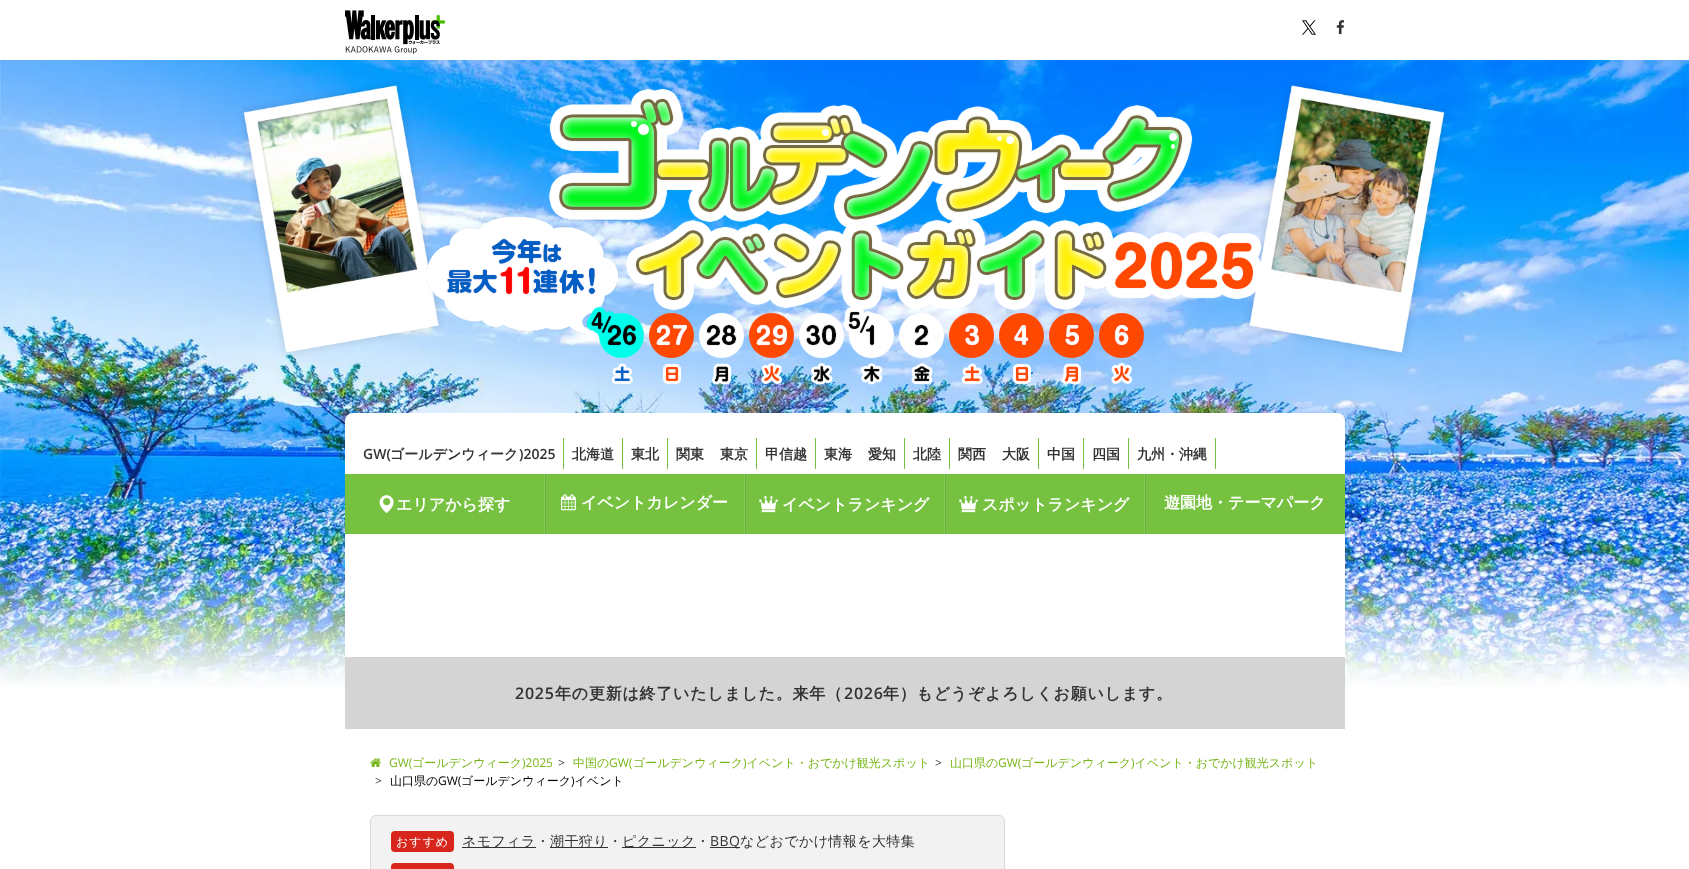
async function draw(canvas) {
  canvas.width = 1689
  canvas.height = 869
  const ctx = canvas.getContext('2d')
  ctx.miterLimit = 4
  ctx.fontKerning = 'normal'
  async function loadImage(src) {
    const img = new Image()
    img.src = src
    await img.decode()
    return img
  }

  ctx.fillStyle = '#fff'
  ctx.fillRect(0, 0, 1689, 869)
  ctx.drawImage(await loadImage('image0.png'), 0, 60, 1689, 627)
  ctx.drawImage(await loadImage('image1.png'), 345, 10, 100, 44)
  ctx.drawImage(await loadImage('image2.png'), 1302, 20, 14, 15)
  ctx.drawImage(await loadImage('image3.png'), 1336, 20, 9, 15)
  ctx.drawImage(await loadImage('image4.png'), 426, 88, 836, 297)
  ctx.beginPath()
  ctx.roundRect(345, 413, 1000, 146, [8, 8, 0, 0])
  ctx.fill()
  ctx.fillStyle = '#76c240'
  ctx.fillRect(563, 438, 1, 31)
  ctx.font = '600 14px Open Sans'
  ctx.fillStyle = '#333'
  ctx.fillText('GW(', 363, 459)
  ctx.font = 'bold 14px WenQuanYi Zen Hei'
  ctx.fillText('ゴールデンウィーク', 390, 459)
  ctx.font = '600 14px Open Sans'
  ctx.fillText(')2025', 519, 459)
  ctx.fillStyle = '#76c240'
  ctx.fillRect(622, 438, 1, 31)
  ctx.font = 'bold 14px WenQuanYi Zen Hei'
  ctx.fillStyle = '#333'
  ctx.fillText('北海道', 572, 459)
  ctx.fillStyle = '#76c240'
  ctx.fillRect(667, 438, 1, 31)
  ctx.fillStyle = '#333'
  ctx.fillText('東北', 631, 459)
  ctx.fillStyle = '#76c240'
  ctx.fillRect(756, 438, 1, 31)
  ctx.fillStyle = '#333'
  ctx.fillText('関東', 676, 459)
  ctx.fillText('東京', 720, 459)
  ctx.fillStyle = '#76c240'
  ctx.fillRect(815, 438, 1, 31)
  ctx.fillStyle = '#333'
  ctx.fillText('甲信越', 765, 459)
  ctx.fillStyle = '#76c240'
  ctx.fillRect(904, 438, 1, 31)
  ctx.fillStyle = '#333'
  ctx.fillText('東海', 824, 459)
  ctx.fillText('愛知', 868, 459)
  ctx.fillStyle = '#76c240'
  ctx.fillRect(949, 438, 1, 31)
  ctx.fillStyle = '#333'
  ctx.fillText('北陸', 913, 459)
  ctx.fillStyle = '#76c240'
  ctx.fillRect(1038, 438, 1, 31)
  ctx.fillStyle = '#333'
  ctx.fillText('関西', 958, 459)
  ctx.fillText('大阪', 1002, 459)
  ctx.fillStyle = '#76c240'
  ctx.fillRect(1083, 438, 1, 31)
  ctx.fillStyle = '#333'
  ctx.fillText('中国', 1047, 459)
  ctx.fillStyle = '#76c240'
  ctx.fillRect(1128, 438, 1, 31)
  ctx.fillStyle = '#333'
  ctx.fillText('四国', 1092, 459)
  ctx.fillStyle = '#76c240'
  ctx.fillRect(1215, 438, 1, 31)
  ctx.fillStyle = '#333'
  ctx.fillText('九州・沖縄', 1137, 459)
  ctx.fillStyle = '#76c240'
  ctx.fillRect(345, 474, 1000, 60)
  ctx.fillStyle = '#84c853'
  ctx.fillRect(544, 474, 1, 60)
  ctx.drawImage(await loadImage('image5.png'), 379, 495, 15, 18)
  ctx.font = 'bold 16px WenQuanYi Zen Hei'
  ctx.fillStyle = '#fff'
  ctx.fillText('エリアから探す', 396, 510)
  ctx.fillStyle = '#84c853'
  ctx.fillRect(744, 474, 1, 60)
  ctx.fillStyle = '#6aaf3a'
  ctx.fillRect(545, 474, 1, 60)
  ctx.drawImage(await loadImage('image6.png'), 561, 494, 15, 17)
  ctx.fillStyle = '#fff'
  ctx.fillText('イベントカレンダー', 581, 508)
  ctx.fillStyle = '#84c853'
  ctx.fillRect(944, 474, 1, 60)
  ctx.fillStyle = '#6aaf3a'
  ctx.fillRect(745, 474, 1, 60)
  ctx.drawImage(await loadImage('image7.png'), 759, 496, 19, 17)
  ctx.fillStyle = '#fff'
  ctx.fillText('イベントランキング', 782, 510)
  ctx.fillStyle = '#84c853'
  ctx.fillRect(1144, 474, 1, 60)
  ctx.fillStyle = '#6aaf3a'
  ctx.fillRect(945, 474, 1, 60)
  ctx.drawImage(await loadImage('image7.png'), 959, 496, 19, 17)
  ctx.fillStyle = '#fff'
  ctx.fillText('スポットランキング', 982, 510)
  ctx.fillStyle = '#6aaf3a'
  ctx.fillRect(1145, 474, 1, 60)
  ctx.fillStyle = '#fff'
  ctx.fillText('遊園地・テーマパーク', 1164, 508)
  ctx.fillRect(345, 559, 1000, 98)
  ctx.fillStyle = '#d4d4d4'
  ctx.fillRect(345, 657, 1000, 72)
  ctx.letterSpacing = '0.75px'
  ctx.font = '600 16px Open Sans'
  ctx.fillStyle = '#333'
  ctx.fillText('2025', 515, 699)
  ctx.font = 'bold 16px WenQuanYi Zen Hei'
  ctx.fillText('年の更新は終了いたしました。来年（', 555, 699)
  ctx.font = '600 16px Open Sans'
  ctx.fillText('2026', 844, 699)
  ctx.font = 'bold 16px WenQuanYi Zen Hei'
  ctx.fillText('年）もどうぞよろしくお願いします。', 883, 699)
  ctx.drawImage(await loadImage('image8.png'), 370, 758, 11, 9)
  ctx.letterSpacing = '0px'
  ctx.font = '12px Open Sans'
  ctx.fillStyle = '#76b518'
  ctx.fillText('GW(', 389, 767)
  ctx.font = '500 12px WenQuanYi Zen Hei'
  ctx.fillText('ゴールデンウィーク', 412, 767)
  ctx.font = '12px Open Sans'
  ctx.fillText(')2025', 522, 767)
  ctx.fillStyle = '#333'
  ctx.fillText('>', 558, 767)
  ctx.font = '500 12px WenQuanYi Zen Hei'
  ctx.fillStyle = '#76b518'
  ctx.fillText('中国の', 573, 767)
  ctx.font = '12px Open Sans'
  ctx.fillText('GW(', 609, 767)
  ctx.font = '500 12px WenQuanYi Zen Hei'
  ctx.fillText('ゴールデンウィーク イベント・おでかけ観光スポット', 633, 767)
  ctx.font = '12px Open Sans'
  ctx.fillText(')', 743, 767)
  ctx.fillStyle = '#333'
  ctx.fillText('>', 935, 767)
  ctx.font = '500 12px WenQuanYi Zen Hei'
  ctx.fillStyle = '#76b518'
  ctx.fillText('山口県の', 950, 767)
  ctx.font = '12px Open Sans'
  ctx.fillText('GW(', 998, 767)
  ctx.font = '500 12px WenQuanYi Zen Hei'
  ctx.fillText('ゴールデンウィーク イベント・おでかけ観光スポット', 1021, 767)
  ctx.font = '12px Open Sans'
  ctx.fillText(')', 1131, 767)
  ctx.fillStyle = '#333'
  ctx.fillText('>', 375, 785)
  ctx.font = '500 12px WenQuanYi Zen Hei'
  ctx.fillStyle = '#000'
  ctx.fillText('山口県の', 390, 785)
  ctx.font = '12px Open Sans'
  ctx.fillText('GW(', 438, 785)
  ctx.font = '500 12px WenQuanYi Zen Hei'
  ctx.fillText('ゴールデンウィーク イベント', 461, 785)
  ctx.font = '12px Open Sans'
  ctx.fillText(')', 571, 785)
  ctx.fillStyle = '#f2f2f2'
  ctx.beginPath()
  ctx.roundRect(370.5, 815.5, 634, 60, 5.5)
  ctx.fill()
  ctx.strokeStyle = '#d9d9d9'
  ctx.stroke()
  ctx.fillStyle = '#d9261d'
  ctx.beginPath()
  ctx.roundRect(391, 831, 63, 21, 4)
  ctx.fill()
  ctx.letterSpacing = '1px'
  ctx.font = '500 12px WenQuanYi Zen Hei'
  ctx.fillStyle = '#fff'
  ctx.fillText('おすすめ', 396, 846)
  ctx.fillStyle = '#333'
  ctx.fillRect(462, 847, 74, 1)
  ctx.letterSpacing = '0.4px'
  ctx.font = '500 14px WenQuanYi Zen Hei'
  ctx.fillText('ネモフィラ・', 462, 846)
  ctx.fillRect(550, 847, 58, 1)
  ctx.fillText('潮干狩り・', 550, 846)
  ctx.fillRect(622, 847, 74, 1)
  ctx.fillText('ピクニック・', 622, 846)
  ctx.fillRect(710, 847, 30, 1)
  ctx.font = '14px Open Sans'
  ctx.fillText('BBQ', 710, 846)
  ctx.font = '500 14px WenQuanYi Zen Hei'
  ctx.fillText('などおでかけ情報を大特集', 740, 846)
  ctx.fillStyle = '#d9261d'
  ctx.beginPath()
  ctx.roundRect(391, 863, 63, 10, 4)
  ctx.fill()
}

draw(document.querySelector('canvas'))
